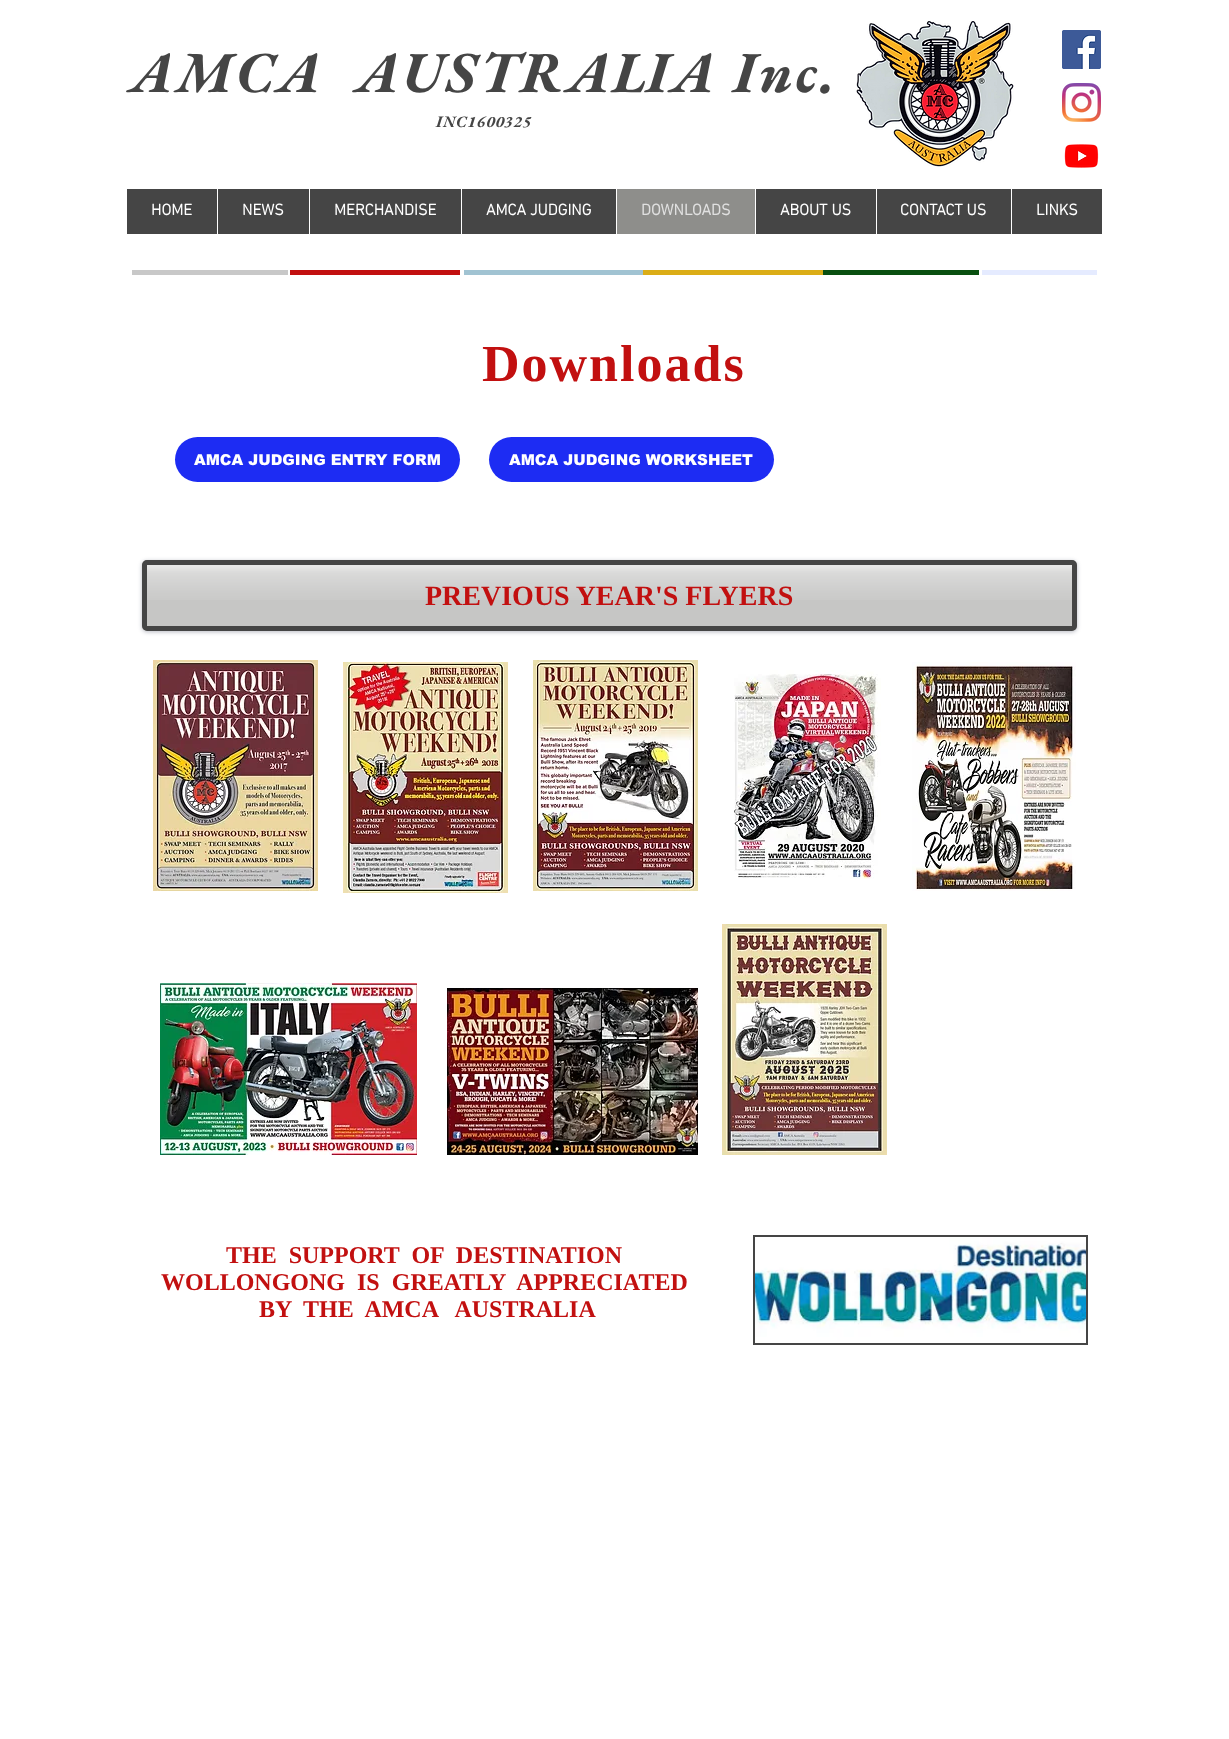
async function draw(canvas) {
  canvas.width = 1229
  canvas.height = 1739
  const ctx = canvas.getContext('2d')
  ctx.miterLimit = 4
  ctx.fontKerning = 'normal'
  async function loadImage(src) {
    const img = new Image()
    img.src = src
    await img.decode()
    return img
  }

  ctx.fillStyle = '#fff'
  ctx.fillRect(0, 0, 1229, 1739)
  ctx.letterSpacing = '2.9px'
  ctx.font = 'italic bold 58px EB Garamond'
  ctx.fillStyle = '#454545'
  ctx.fillText('AMCA  AUSTRALIA Inc.', 130, 92)
  ctx.letterSpacing = '0.75px'
  ctx.font = 'italic bold 16px EB Garamond'
  ctx.fillText('INC1600325', 436, 127)
  ctx.drawImage(await loadImage('image0.png'), 856, 21, 158, 146)
  ctx.drawImage(await loadImage('image1.png'), 1062, 30, 39, 39)
  ctx.drawImage(await loadImage('image2.png'), 1062, 83, 39, 39)
  ctx.drawImage(await loadImage('image3.png'), 1064, 144, 35, 24)
  ctx.fillRect(127, 189, 975, 45)
  ctx.letterSpacing = '0px'
  ctx.font = 'bold 16px "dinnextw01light"'
  ctx.fillStyle = '#fff'
  ctx.fillText('HOME', 151, 215)
  ctx.fillRect(217, 189, 1, 45)
  ctx.fillText('NEWS', 242, 215)
  ctx.fillRect(309, 189, 1, 45)
  ctx.fillText('MERCHANDISE', 334, 215)
  ctx.fillRect(461, 189, 1, 45)
  ctx.fillText('AMCA JUDGING', 486, 215)
  ctx.fillStyle = '#8e8e8b'
  ctx.fillRect(617, 189, 138, 45)
  ctx.fillStyle = '#fff'
  ctx.fillRect(616, 189, 1, 45)
  ctx.fillStyle = '#e0e0e0'
  ctx.fillText('DOWNLOADS', 641, 215)
  ctx.fillStyle = '#fff'
  ctx.fillRect(755, 189, 1, 45)
  ctx.fillText('ABOUT US', 780, 215)
  ctx.fillRect(876, 189, 1, 45)
  ctx.fillText('CONTACT US', 900, 215)
  ctx.fillRect(1011, 189, 1, 45)
  ctx.fillText('LINKS', 1036, 215)
  ctx.fillStyle = '#c8c8c8'
  ctx.fillRect(132, 270, 156, 5)
  ctx.fillStyle = '#c21010'
  ctx.fillRect(290, 270, 170, 5)
  ctx.fillStyle = '#a1c3d2'
  ctx.fillRect(464, 270, 180, 5)
  ctx.fillStyle = '#dbad16'
  ctx.fillRect(643, 270, 180, 5)
  ctx.fillStyle = '#094f10'
  ctx.fillRect(823, 270, 156, 5)
  ctx.fillStyle = '#e5ebff'
  ctx.fillRect(982, 270, 115, 5)
  ctx.letterSpacing = '2px'
  ctx.font = 'bold 52px Liberation Serif'
  ctx.fillStyle = '#c21010'
  ctx.fillText('Downloads', 482, 381)
  ctx.fillStyle = '#1d2cf3'
  ctx.beginPath()
  ctx.roundRect(175, 437, 285, 45, 22.5)
  ctx.fill()
  ctx.letterSpacing = '0px'
  ctx.font = '900 15px arial'
  ctx.fillStyle = '#fff'
  ctx.fillText('AMCA JUDGING ENTRY FORM', 194, 465)
  ctx.fillStyle = '#1d2cf3'
  ctx.beginPath()
  ctx.roundRect(489, 437, 285, 45, 22.5)
  ctx.fill()
  ctx.fillStyle = '#fff'
  ctx.fillText('AMCA JUDGING WORKSHEET', 509, 465)
  ctx.save()
  ctx.beginPath()
  ctx.moveTo(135, 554)
  ctx.lineTo(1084, 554)
  ctx.lineTo(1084, 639)
  ctx.lineTo(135, 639)
  ctx.closePath()
  ctx.moveTo(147, 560)
  ctx.lineTo(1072, 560)
  ctx.bezierCurveTo(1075, 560, 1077, 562, 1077, 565)
  ctx.lineTo(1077, 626)
  ctx.bezierCurveTo(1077, 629, 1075, 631, 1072, 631)
  ctx.lineTo(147, 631)
  ctx.bezierCurveTo(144, 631, 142, 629, 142, 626)
  ctx.lineTo(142, 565)
  ctx.bezierCurveTo(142, 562, 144, 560, 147, 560)
  ctx.closePath()
  ctx.clip('evenodd')
  ctx.fillStyle = '#0912304a'
  ctx.filter = 'blur(2px)'
  ctx.beginPath()
  ctx.roundRect(142, 561, 935, 71, 5)
  ctx.fill()
  ctx.filter = 'none'
  ctx.restore()
  ctx.fillStyle = '#8e8e8b80'
  ctx.beginPath()
  ctx.roundRect(142, 560, 935, 71, 5)
  ctx.fill()
  ctx.drawImage(await loadImage('image4.png'), 147, 565, 925, 35)
  ctx.beginPath()
  ctx.roundRect(144.5, 562.5, 930, 66, 2.5)
  ctx.strokeStyle = '#454545'
  ctx.lineWidth = 5
  ctx.stroke()
  ctx.font = 'bold 28px Liberation Serif'
  ctx.fillStyle = '#c21010'
  ctx.fillText('PREVIOUS YEAR\'S FLYERS', 425, 605)
  ctx.drawImage(await loadImage('image5.png'), 153, 660, 165, 231)
  ctx.drawImage(await loadImage('image6.png'), 343, 662, 165, 231)
  ctx.drawImage(await loadImage('image7.png'), 533, 660, 165, 231)
  ctx.drawImage(await loadImage('image8.png'), 734, 670, 147, 209)
  ctx.drawImage(await loadImage('image9.png'), 912, 662, 164, 229)
  ctx.drawImage(await loadImage('image10.png'), 160, 983, 257, 172)
  ctx.drawImage(await loadImage('image11.png'), 447, 988, 251, 167)
  ctx.drawImage(await loadImage('image12.png'), 722, 924, 165, 231)
  ctx.font = 'bold 24px Liberation Serif'
  ctx.fillText('THE  SUPPORT  OF  DESTINATION', 226, 1263)
  ctx.fillText('WOLLONGONG  IS  GREATLY  APPRECIATED', 161, 1290)
  ctx.fillText('BY  THE  AMCA   AUSTRALIA', 259, 1317)
  ctx.fillStyle = '#454545'
  ctx.fillRect(753, 1235, 335, 110)
  ctx.drawImage(await loadImage('image13.png'), 755, 1237, 331, 106)
}

draw(document.querySelector('canvas'))
